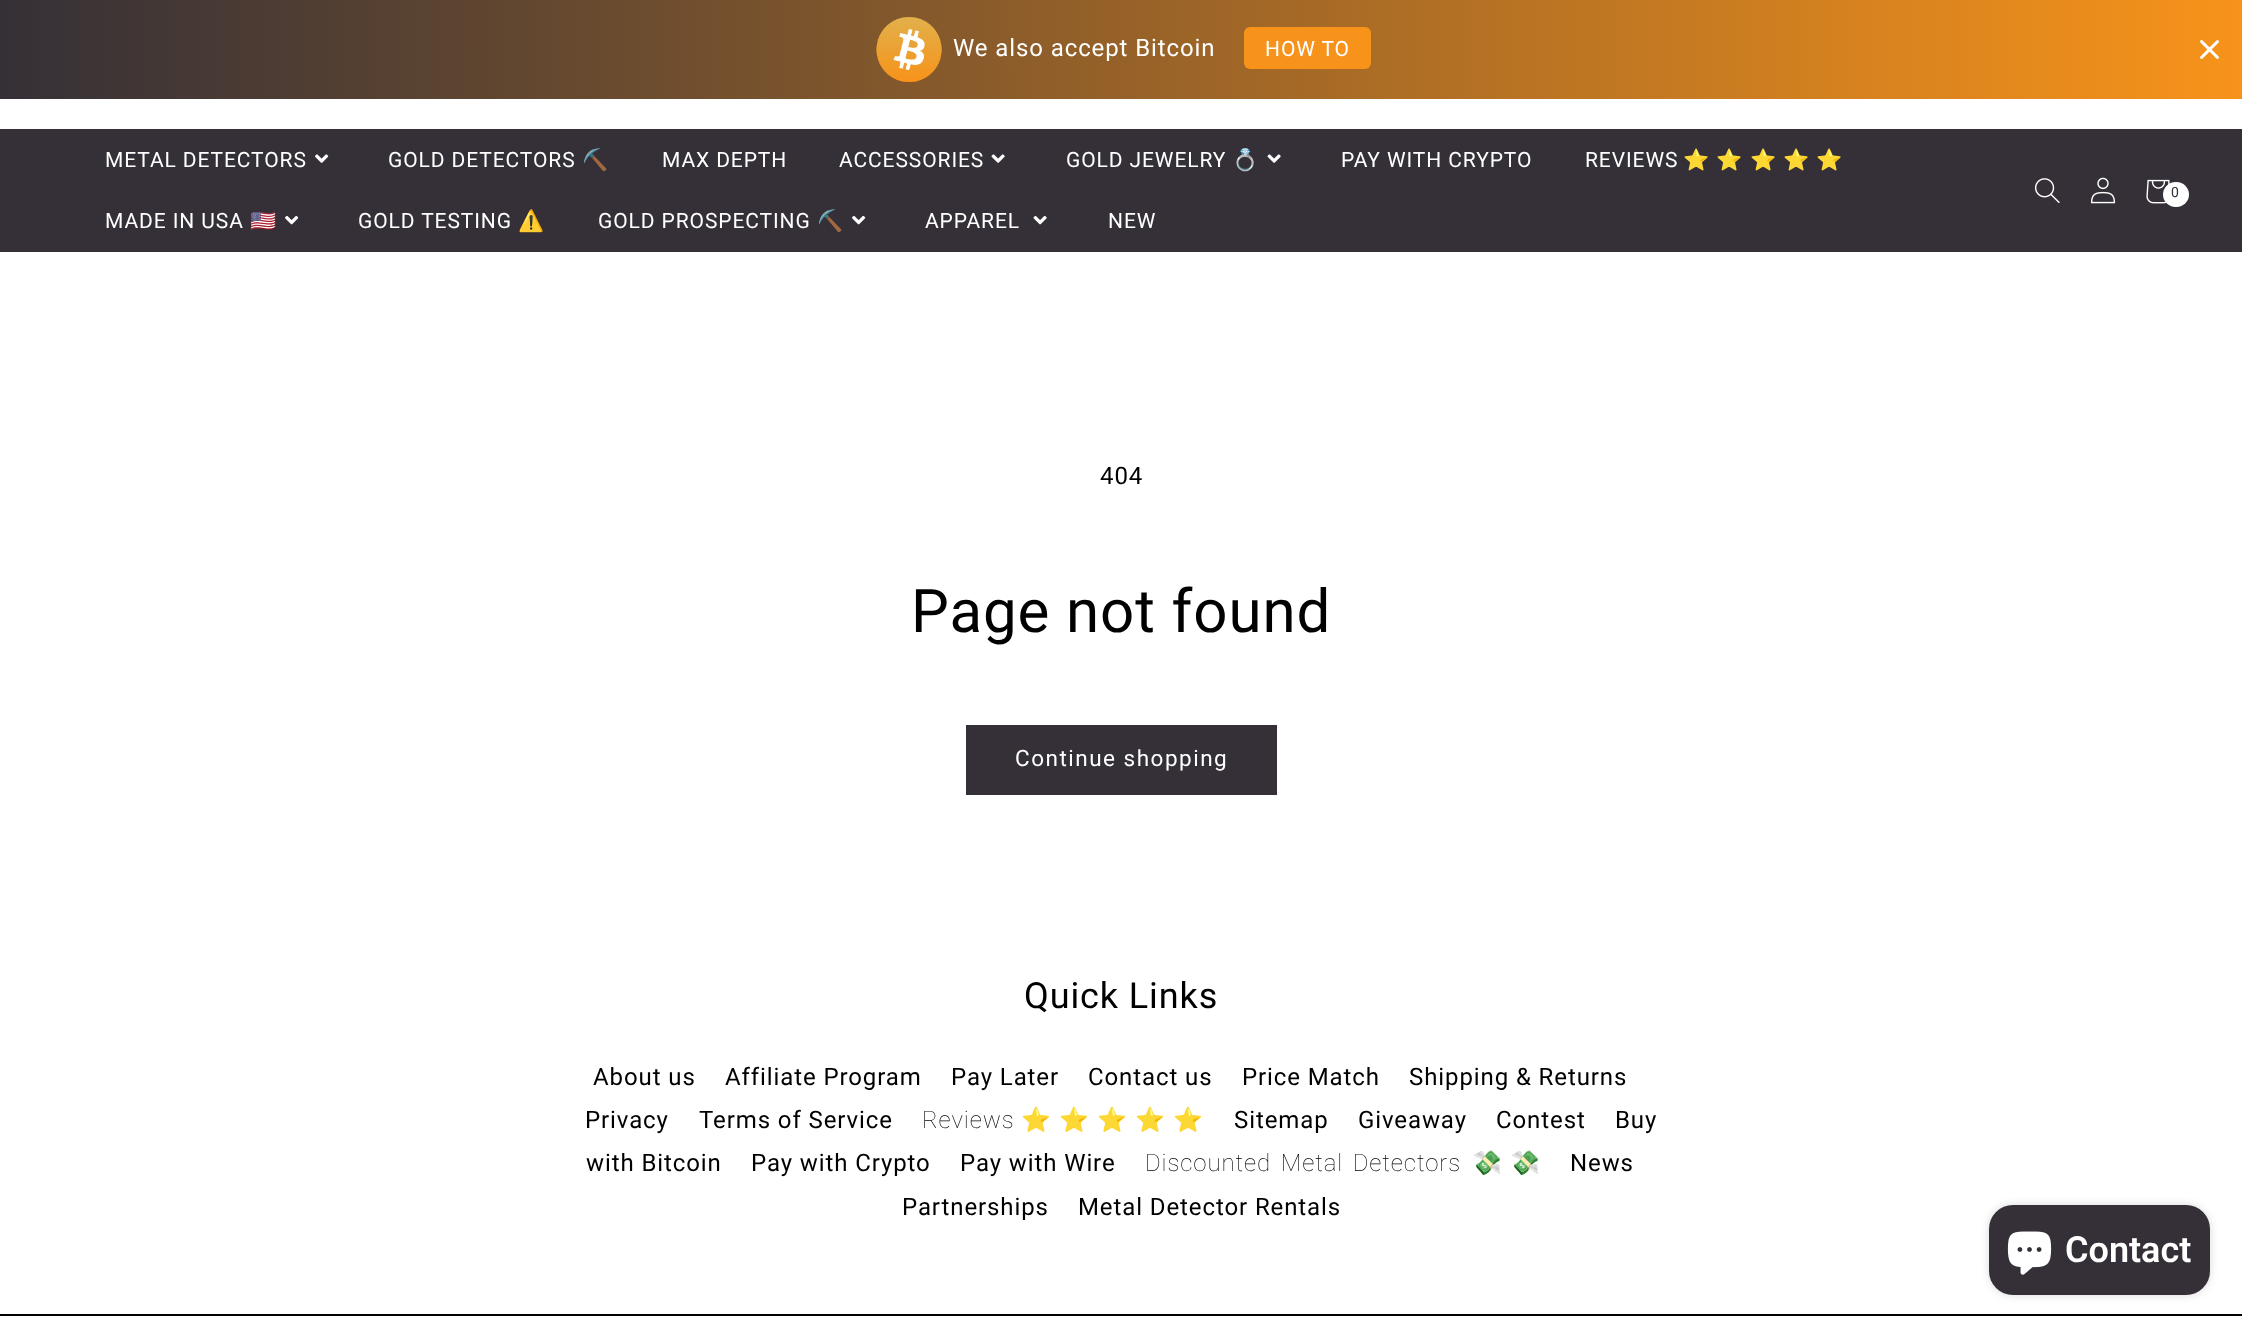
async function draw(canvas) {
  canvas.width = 2242
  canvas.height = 1325
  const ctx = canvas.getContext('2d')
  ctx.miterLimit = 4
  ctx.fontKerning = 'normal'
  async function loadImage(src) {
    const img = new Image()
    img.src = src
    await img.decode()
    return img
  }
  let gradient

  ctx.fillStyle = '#fff'
  ctx.fillRect(0, 0, 2242, 1325)
  gradient = ctx.createLinearGradient(0, 50, 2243, 49)
  gradient.addColorStop(0, '#353037')
  gradient.addColorStop(1, '#f7931a')
  ctx.fillStyle = gradient
  ctx.fillRect(0, 0, 2242, 99)
  ctx.drawImage(await loadImage('image0.png'), 876, 17, 66, 65)
  ctx.letterSpacing = '0.9px'
  ctx.font = '24px Roboto'
  ctx.fillStyle = '#fff'
  ctx.fillText('We also accept Bitcoin', 953, 56)
  ctx.fillStyle = '#f7931a'
  ctx.beginPath()
  ctx.roundRect(1244, 27, 127, 42, 6)
  ctx.fill()
  ctx.font = '21px Roboto'
  ctx.fillStyle = '#fff'
  ctx.fillText('HOW TO', 1265, 56)
  ctx.drawImage(await loadImage('image1.png'), 2200, 40, 19, 19)
  ctx.font = '24px Roboto'
  ctx.fillStyle = '#000'
  ctx.fillText('404', 1100, 484)
  ctx.font = '60px Roboto'
  ctx.fillText('Page not found', 911, 632)
  ctx.strokeStyle = '#353037'
  ctx.lineWidth = 2
  ctx.strokeRect(967, 726, 309, 68)
  ctx.fillStyle = '#353037'
  ctx.fillRect(968, 727, 307, 66)
  ctx.letterSpacing = '1.5px'
  ctx.font = '22.5px Roboto'
  ctx.fillStyle = '#fff'
  ctx.fillText('Continue shopping', 1015, 766)
  ctx.letterSpacing = '0.9px'
  ctx.font = '36px Roboto'
  ctx.fillStyle = '#000'
  ctx.fillText('Quick Links', 1024, 1008)
  ctx.font = '24px Roboto'
  ctx.fillText('About us', 593, 1085)
  ctx.fillText('Affiliate Program', 725, 1085)
  ctx.fillText('Pay Later', 951, 1085)
  ctx.fillText('Contact us', 1088, 1085)
  ctx.fillText('Price Match', 1242, 1085)
  ctx.fillText('Shipping & Returns', 1409, 1085)
  ctx.fillText('Privacy', 585, 1128)
  ctx.fillText('Terms of Service', 699, 1128)
  ctx.font = '100 24px Roboto'
  ctx.fillText('Reviews', 922, 1128)
  ctx.font = '24px Noto Color Emoji'
  ctx.fillText('⭐️', 1021, 1128)
  ctx.fillText('⭐️', 1059, 1128)
  ctx.fillText('⭐️', 1097, 1128)
  ctx.fillText('⭐️', 1135, 1128)
  ctx.fillText('⭐️', 1173, 1128)
  ctx.font = '24px Roboto'
  ctx.fillText('Sitemap', 1234, 1128)
  ctx.fillText('Giveaway', 1358, 1128)
  ctx.fillText('Contest', 1496, 1128)
  ctx.fillText('Buy', 1615, 1128)
  ctx.fillText('with Bitcoin', 586, 1171)
  ctx.fillText('Pay with Crypto', 751, 1171)
  ctx.fillText('Pay with Wire', 960, 1171)
  ctx.wordSpacing = '3px'
  ctx.font = '100 24px Roboto'
  ctx.fillText('Discounted Metal Detectors', 1145, 1171)
  ctx.wordSpacing = '0px'
  ctx.font = '24px Noto Color Emoji'
  ctx.fillText('💸', 1472, 1171)
  ctx.fillText('💸', 1510, 1171)
  ctx.font = '24px Roboto'
  ctx.fillText('News', 1570, 1171)
  ctx.fillText('Partnerships', 902, 1215)
  ctx.fillText('Metal Detector Rentals', 1078, 1215)
  ctx.fillRect(0, 1314, 2242, 2)
  ctx.drawImage(await loadImage('image2.png'), 157, 99, 4, 1)
  ctx.fillStyle = '#353037'
  ctx.fillRect(0, 129, 2242, 123)
  ctx.font = '21px Roboto'
  ctx.fillStyle = '#fff'
  ctx.fillText('METAL DETECTORS', 105, 167)
  ctx.drawImage(await loadImage('image3.png'), 315, 154, 14, 9)
  ctx.fillText('GOLD DETECTORS', 388, 167)
  ctx.font = '21px "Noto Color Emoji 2"'
  ctx.fillText('⛏️', 582, 167)
  ctx.font = '21px Roboto'
  ctx.fillText('MAX DEPTH', 662, 167)
  ctx.fillText('ACCESSORIES', 839, 167)
  ctx.drawImage(await loadImage('image4.png'), 991, 154, 14, 9)
  ctx.fillText('GOLD JEWELRY', 1066, 167)
  ctx.font = '21px "Noto Color Emoji 2"'
  ctx.fillText('💍', 1232, 167)
  ctx.drawImage(await loadImage('image4.png'), 1267, 154, 14, 9)
  ctx.font = '21px Roboto'
  ctx.fillText('PAY WITH CRYPTO', 1341, 167)
  ctx.fillText('REVIEWS', 1585, 167)
  ctx.font = '21px "Noto Color Emoji 2"'
  ctx.fillText('⭐️', 1683, 167)
  ctx.fillText('⭐️', 1716, 167)
  ctx.fillText('⭐️', 1750, 167)
  ctx.fillText('⭐️', 1783, 167)
  ctx.fillText('⭐️', 1816, 167)
  ctx.font = '21px Roboto'
  ctx.fillText('MADE IN USA', 105, 228)
  ctx.font = '21px "Noto Color Emoji 2"'
  ctx.fillText('🇺🇸', 250, 228)
  ctx.drawImage(await loadImage('image5.png'), 285, 215, 14, 10)
  ctx.font = '21px Roboto'
  ctx.fillText('GOLD TESTING', 358, 228)
  ctx.font = '21px "Noto Color Emoji 2"'
  ctx.fillText('⚠️', 518, 228)
  ctx.font = '21px Roboto'
  ctx.fillText('GOLD PROSPECTING', 598, 228)
  ctx.font = '21px "Noto Color Emoji 2"'
  ctx.fillText('⛏️', 817, 228)
  ctx.drawImage(await loadImage('image5.png'), 852, 215, 14, 10)
  ctx.font = '21px Roboto'
  ctx.fillText('APPAREL', 925, 228)
  ctx.drawImage(await loadImage('image6.png'), 1033, 215, 14, 10)
  ctx.fillText('NEW', 1108, 228)
  ctx.drawImage(await loadImage('image7.png'), 2034, 178, 26, 25)
  ctx.drawImage(await loadImage('image8.png'), 2090, 177, 26, 27)
  ctx.drawImage(await loadImage('image9.png'), 2146, 179, 24, 25)
  ctx.beginPath()
  ctx.roundRect(2163, 182, 26, 25, 12.5)
  ctx.fill()
  ctx.font = '14px Roboto'
  ctx.fillStyle = '#353037'
  ctx.fillText('0', 2171, 197)
  ctx.fillStyle = '#00000026'
  ctx.filter = 'blur(4px)'
  ctx.beginPath()
  ctx.roundRect(1989, 1205, 221, 90, 24)
  ctx.fill()
  ctx.filter = 'none'
  ctx.fillStyle = '#353037'
  ctx.beginPath()
  ctx.roundRect(1989, 1205, 221, 90, 24)
  ctx.fill()
  ctx.drawImage(await loadImage('image10.png'), 2007, 1231, 45, 44)
  ctx.letterSpacing = '0px'
  ctx.font = '600 36px Roboto'
  ctx.fillStyle = '#fff'
  ctx.fillText('Contact', 2065, 1262)
}

draw(document.querySelector('canvas'))
